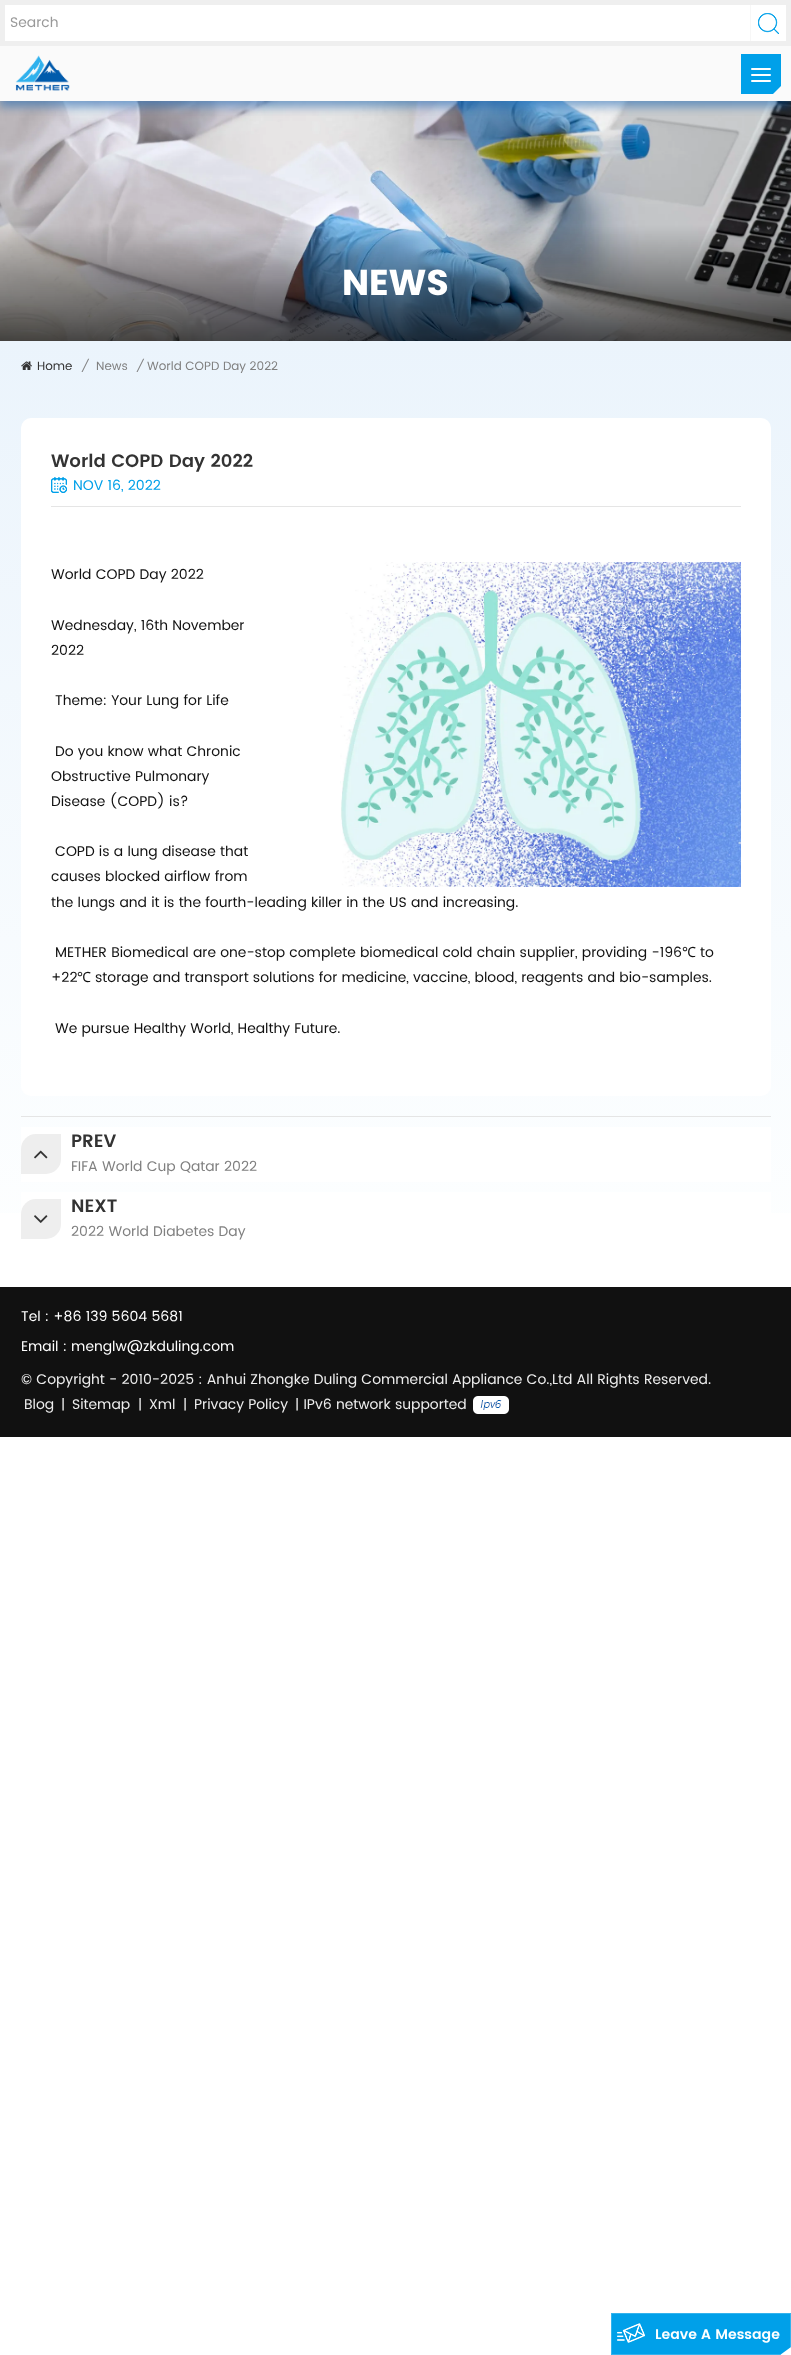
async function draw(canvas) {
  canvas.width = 791
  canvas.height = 2355
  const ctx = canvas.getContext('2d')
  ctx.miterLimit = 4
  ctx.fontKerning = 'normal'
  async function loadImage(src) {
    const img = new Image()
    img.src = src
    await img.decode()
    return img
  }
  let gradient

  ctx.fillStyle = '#fff'
  ctx.fillRect(0, 0, 791, 2355)
  ctx.fillStyle = '#fafafa'
  ctx.fillRect(0, 46, 791, 55)
  ctx.drawImage(await loadImage('image2.png'), 0, 101, 791, 240)
  ctx.save()
  ctx.beginPath()
  ctx.rect(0, 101, 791, 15)
  ctx.clip()
  ctx.fillStyle = '#0a5bae80'
  ctx.filter = 'blur(5px)'
  ctx.beginPath()
  ctx.rect(0, 6, 791, 101)
  ctx.fill()
  ctx.filter = 'none'
  ctx.restore()
  ctx.fillStyle = '#efefef'
  ctx.fillRect(0, 0, 791, 46)
  ctx.fillStyle = '#fff'
  ctx.fillRect(5, 5, 781, 36)
  ctx.font = '14px Poppins'
  ctx.fillStyle = '#999'
  ctx.fillText('Search', 10, 27)
  ctx.fillStyle = '#f7f7f7'
  ctx.fillRect(750, 5, 1, 36)
  ctx.drawImage(await loadImage('image0.png'), 758, 13, 21, 21)
  ctx.drawImage(await loadImage('image1.png'), 15, 55, 55, 36)
  ctx.fillStyle = '#00a0e9'
  ctx.beginPath()
  ctx.moveTo(741, 54)
  ctx.lineTo(741, 94)
  ctx.lineTo(773, 94)
  ctx.lineTo(781, 86)
  ctx.lineTo(781, 54)
  ctx.closePath()
  ctx.fill()
  ctx.fillStyle = '#fff'
  ctx.beginPath()
  ctx.roundRect(751, 74, 20, 2, 1)
  ctx.fill()
  ctx.beginPath()
  ctx.roundRect(751, 68, 20, 2, 1)
  ctx.fill()
  ctx.beginPath()
  ctx.roundRect(751, 80, 20, 2, 1)
  ctx.fill()
  ctx.font = 'bold 36px Poppins'
  ctx.fillText('NEWS', 342, 295)
  gradient = ctx.createLinearGradient(395, 341, 396, 1287)
  gradient.addColorStop(0, '#ebf4fc')
  gradient.addColorStop(1, '#feffff')
  ctx.fillStyle = gradient
  ctx.fillRect(0, 341, 791, 872)
  ctx.drawImage(await loadImage('image3.png'), 21, 361, 11, 9)
  ctx.font = '12px Poppins'
  ctx.fillStyle = '#333'
  ctx.fillText('Home', 37, 370)
  ctx.font = 'italic 12px Poppins'
  ctx.fillStyle = '#808080'
  ctx.fillText('/', 81, 370)
  ctx.font = '12px Poppins'
  ctx.fillText('News', 96, 370)
  ctx.font = 'italic 12px Poppins'
  ctx.fillText('/', 136, 370)
  ctx.font = '12px Poppins'
  ctx.fillText('World COPD Day 2022', 147, 370)
  ctx.fillStyle = '#fff'
  ctx.beginPath()
  ctx.roundRect(21, 418, 750, 678, 10)
  ctx.fill()
  ctx.fillStyle = '#e5e5e5'
  ctx.fillRect(51, 506, 690, 1)
  ctx.font = '600 18px Poppins'
  ctx.fillStyle = '#333'
  ctx.fillText('World COPD Day 2022', 51, 467)
  ctx.drawImage(await loadImage('image4.png'), 51, 477, 16, 16)
  ctx.font = '14px Poppins'
  ctx.fillStyle = '#00a0e9'
  ctx.fillText('NOV 16, 2022', 73, 490)
  ctx.fillStyle = '#111'
  ctx.fillText('World COPD Day 2022', 51, 579)
  ctx.drawImage(await loadImage('image5.png'), 340, 562, 401, 325)
  ctx.fillText('Wednesday, 16th November', 51, 630)
  ctx.fillText('2022', 51, 655)
  ctx.fillText('Theme: Your Lung for Life', 55, 705)
  ctx.fillText('Do you know what Chronic', 55, 756)
  ctx.fillText('Obstructive Pulmonary', 51, 781)
  ctx.fillText('Disease (COPD) is?', 51, 806)
  ctx.fillText('COPD is a lung disease that', 55, 856)
  ctx.fillText('causes blocked airflow from', 51, 881)
  ctx.fillText('the lungs and it is the fourth-leading killer in the US and increasing.', 51, 907)
  ctx.fillText('METHER Biomedical are one-stop complete biomedical cold chain supplier, providing -196', 55, 957)
  ctx.font = '14px Noto Sans'
  ctx.fillText('℃', 682, 957)
  ctx.font = '14px Poppins'
  ctx.fillText('to', 700, 957)
  ctx.fillText('+22', 51, 982)
  ctx.font = '14px Noto Sans'
  ctx.fillText('℃', 77, 982)
  ctx.font = '14px Poppins'
  ctx.fillText('storage and transport solutions for medicine, vaccine, blood, reagents and bio-samples.', 95, 982)
  ctx.fillText('We pursue Healthy World, Healthy Future.', 55, 1033)
  ctx.fillStyle = '#e5e5e5'
  ctx.fillRect(21, 1116, 750, 1)
  ctx.fillStyle = '#fff'
  ctx.fillRect(21, 1127, 750, 55)
  ctx.fillStyle = '#eee'
  ctx.beginPath()
  ctx.roundRect(21, 1134, 40, 40, [15, 0, 15, 0])
  ctx.fill()
  ctx.drawImage(await loadImage('image6.png'), 34, 1150, 14, 9)
  ctx.font = '600 18px Poppins'
  ctx.fillStyle = '#333'
  ctx.fillText('PREV', 71, 1147)
  ctx.font = '14px Poppins'
  ctx.fillStyle = '#808080'
  ctx.fillText('FIFA World Cup Qatar 2022', 71, 1171)
  ctx.fillStyle = '#fff'
  ctx.fillRect(21, 1192, 750, 21)
  ctx.fillStyle = '#eee'
  ctx.beginPath()
  ctx.roundRect(21, 1199, 40, 40, [15, 0, 15, 0])
  ctx.fill()
  ctx.drawImage(await loadImage('image7.png'), 34, 1215, 14, 8)
  ctx.font = '600 18px Poppins'
  ctx.fillStyle = '#333'
  ctx.fillText('NEXT', 71, 1212)
  ctx.font = '14px Poppins'
  ctx.fillStyle = '#808080'
  ctx.fillText('2022 World Diabetes Day', 71, 1236)
  ctx.fillStyle = '#111'
  ctx.fillRect(0, 1287, 791, 150)
  ctx.fillStyle = '#fff'
  ctx.fillText('Tel : +86 139 5604 5681', 21, 1321)
  ctx.fillText('Email : menglw@zkduling.com', 21, 1351)
  ctx.fillStyle = '#eee'
  ctx.fillText('© Copyright - 2010-2025 : Anhui Zhongke Duling Commercial Appliance Co.,Ltd All Rights Reserved.', 21, 1384)
  ctx.fillText('Blog', 24, 1409)
  ctx.fillText('|', 61, 1409)
  ctx.fillText('Sitemap', 72, 1409)
  ctx.fillText('|', 138, 1409)
  ctx.fillText('Xml', 149, 1409)
  ctx.fillText('|', 183, 1409)
  ctx.fillText('Privacy Policy', 194, 1409)
  ctx.fillText('| IPv6 network supported', 295, 1409)
  ctx.drawImage(await loadImage('image8.png'), 473, 1396, 36, 18)
  ctx.fillStyle = '#00a0e9'
  ctx.beginPath()
  ctx.moveTo(611, 2313)
  ctx.lineTo(611, 2355)
  ctx.lineTo(780, 2355)
  ctx.lineTo(791, 2347)
  ctx.lineTo(791, 2313)
  ctx.closePath()
  ctx.fill()
  ctx.fillStyle = '#33b3ed'
  ctx.beginPath()
  ctx.moveTo(611, 2313)
  ctx.lineTo(611, 2355)
  ctx.lineTo(780, 2355)
  ctx.lineTo(781, 2354)
  ctx.lineTo(612, 2354)
  ctx.lineTo(612, 2314)
  ctx.lineTo(790, 2314)
  ctx.lineTo(790, 2347)
  ctx.lineTo(791, 2347)
  ctx.lineTo(791, 2313)
  ctx.closePath()
  ctx.fill()
  ctx.drawImage(await loadImage('image9.png'), 617, 2323, 28, 20)
  ctx.font = '600 14px Poppins'
  ctx.fillStyle = '#fff'
  ctx.fillText('Leave A Message', 655, 2339)
}

draw(document.querySelector('canvas'))
